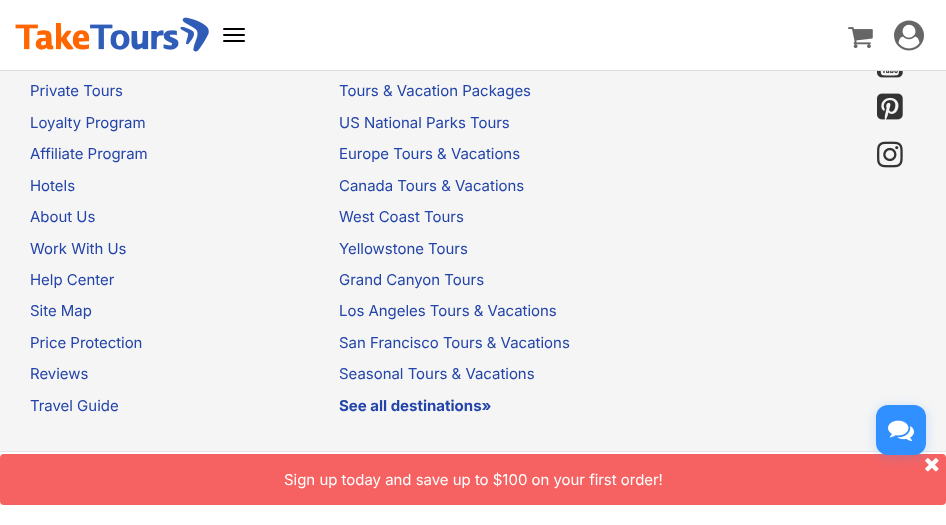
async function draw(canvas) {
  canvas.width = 946
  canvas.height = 525
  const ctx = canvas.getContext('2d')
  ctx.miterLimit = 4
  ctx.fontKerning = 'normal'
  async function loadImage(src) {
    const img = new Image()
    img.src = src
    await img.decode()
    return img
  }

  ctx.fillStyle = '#fff'
  ctx.fillRect(0, 0, 946, 525)
  ctx.fillStyle = '#ddd'
  ctx.fillRect(0, 70, 946, 1)
  ctx.drawImage(await loadImage('image0.png'), 15, 17, 194, 35)
  ctx.fillStyle = '#000'
  ctx.beginPath()
  ctx.roundRect(223, 28, 22, 2, 1)
  ctx.fill()
  ctx.beginPath()
  ctx.roundRect(223, 34, 22, 2, 1)
  ctx.fill()
  ctx.beginPath()
  ctx.roundRect(223, 40, 22, 2, 1)
  ctx.fill()
  ctx.drawImage(await loadImage('image1.png'), 848, 27, 25, 22)
  ctx.drawImage(await loadImage('image2.png'), 894, 20, 30, 31)
  ctx.fillStyle = '#f5f5f5'
  ctx.fillRect(0, 71, 946, 380)
  ctx.fillStyle = '#e7e7e7'
  ctx.fillRect(0, 451, 946, 1)
  ctx.font = '15px Inter'
  ctx.fillStyle = '#2344a8'
  ctx.fillText('Private Tours', 30, 96)
  ctx.fillText('Loyalty Program', 30, 128)
  ctx.fillText('Affiliate Program', 30, 159)
  ctx.fillText('Hotels', 30, 191)
  ctx.fillText('About Us', 30, 222)
  ctx.fillText('Work With Us', 30, 254)
  ctx.fillText('Help Center', 30, 285)
  ctx.fillText('Site Map', 30, 316)
  ctx.fillText('Price Protection', 30, 348)
  ctx.fillText('Reviews', 30, 379)
  ctx.fillText('Travel Guide', 30, 411)
  ctx.fillText('Tours & Vacation Packages', 339, 96)
  ctx.fillText('US National Parks Tours', 339, 128)
  ctx.fillText('Europe Tours & Vacations', 339, 159)
  ctx.fillText('Canada Tours & Vacations', 339, 191)
  ctx.fillText('West Coast Tours', 339, 222)
  ctx.fillText('Yellowstone Tours', 339, 254)
  ctx.fillText('Grand Canyon Tours', 339, 285)
  ctx.fillText('Los Angeles Tours & Vacations', 339, 316)
  ctx.fillText('San Francisco Tours & Vacations', 339, 348)
  ctx.fillText('Seasonal Tours & Vacations', 339, 379)
  ctx.font = 'bold 15px Inter'
  ctx.fillText('See all destinations»', 339, 411)
  ctx.drawImage(await loadImage('image3.png'), 877, 71, 26, 7)
  ctx.drawImage(await loadImage('image4.png'), 877, 93, 26, 27)
  ctx.drawImage(await loadImage('image5.png'), 877, 141, 26, 27)
  ctx.fillStyle = '#f66262'
  ctx.beginPath()
  ctx.roundRect(0, 454, 946, 51, 4)
  ctx.fill()
  ctx.drawImage(await loadImage('image7.png'), 925, 458, 14, 14)
  ctx.fillStyle = '#3090ff40'
  ctx.filter = 'blur(6px)'
  ctx.beginPath()
  ctx.roundRect(876, 407, 50, 50, 12)
  ctx.fill()
  ctx.filter = 'none'
  ctx.fillStyle = '#3090ff'
  ctx.beginPath()
  ctx.roundRect(876, 405, 50, 50, 12)
  ctx.fill()
  ctx.drawImage(await loadImage('image6.png'), 888, 420, 26, 21)
  ctx.font = '15px Inter'
  ctx.fillStyle = '#fff'
  ctx.fillText('Sign up today and save up to $100 on your first order!', 284, 485)
}

draw(document.querySelector('canvas'))
